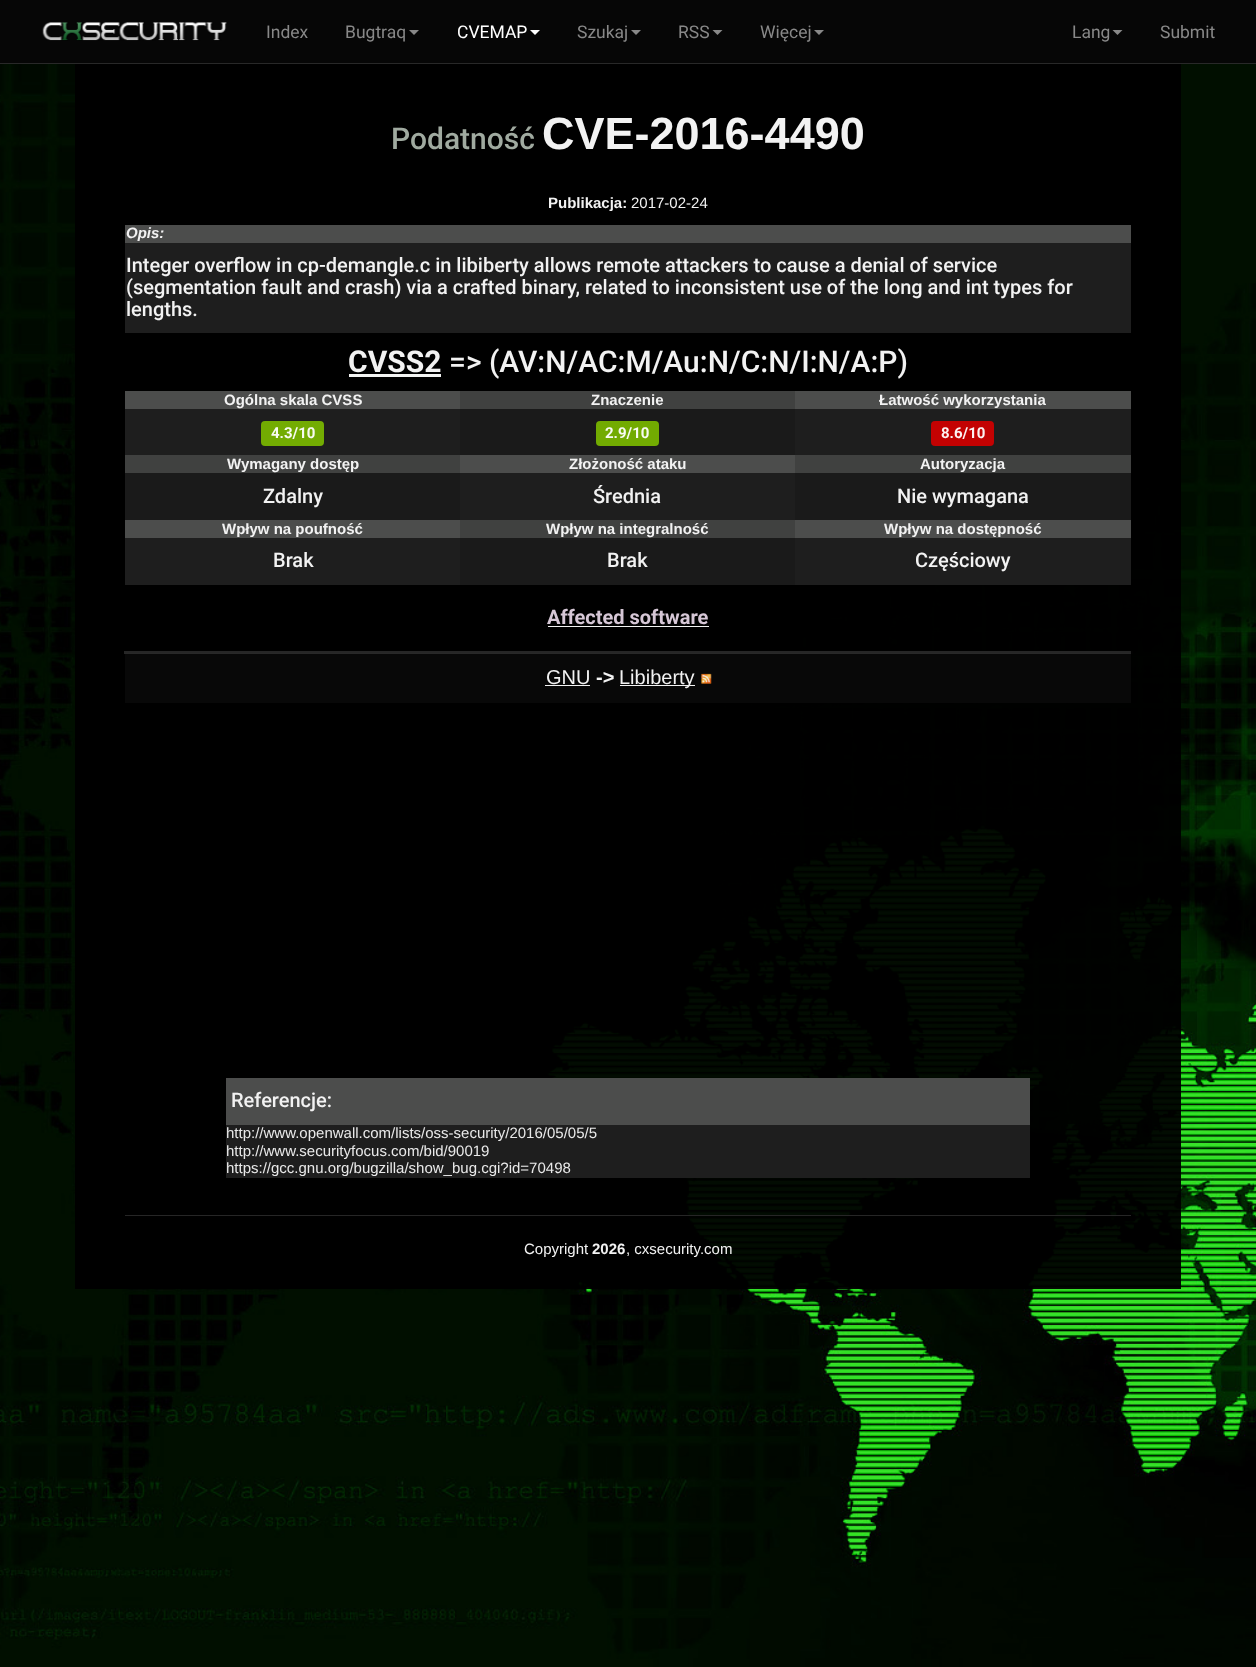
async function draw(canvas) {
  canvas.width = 1256
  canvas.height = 1667
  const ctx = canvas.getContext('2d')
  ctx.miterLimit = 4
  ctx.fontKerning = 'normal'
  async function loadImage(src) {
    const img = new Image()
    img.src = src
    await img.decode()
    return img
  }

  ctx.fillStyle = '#fff'
  ctx.fillRect(0, 0, 1256, 1667)
  ctx.drawImage(await loadImage('image0.png'), 0, 64, 1256, 1603)
  ctx.fillStyle = '#060606'
  ctx.fillRect(0, 0, 1256, 63)
  ctx.fillStyle = '#282828'
  ctx.fillRect(0, 63, 1256, 1)
  ctx.drawImage(await loadImage('image1.png'), 42, 22, 185, 19)
  ctx.font = '17.5px Roboto'
  ctx.fillStyle = '#888'
  ctx.fillText('Index', 266, 38)
  ctx.fillText('Bugtraq', 345, 38)
  ctx.beginPath()
  ctx.moveTo(409, 30)
  ctx.lineTo(419, 30)
  ctx.lineTo(414, 35)
  ctx.closePath()
  ctx.fill()
  ctx.fillStyle = '#fff'
  ctx.fillText('CVEMAP', 457, 38)
  ctx.beginPath()
  ctx.moveTo(530, 30)
  ctx.lineTo(540, 30)
  ctx.lineTo(535, 35)
  ctx.closePath()
  ctx.fill()
  ctx.fillStyle = '#888'
  ctx.fillText('Szukaj', 577, 38)
  ctx.beginPath()
  ctx.moveTo(631, 30)
  ctx.lineTo(641, 30)
  ctx.lineTo(636, 35)
  ctx.closePath()
  ctx.fill()
  ctx.fillText('RSS', 678, 38)
  ctx.beginPath()
  ctx.moveTo(712.5, 30)
  ctx.lineTo(722.5, 30)
  ctx.lineTo(717.5, 35)
  ctx.closePath()
  ctx.fill()
  ctx.fillText('Więcej', 760, 38)
  ctx.beginPath()
  ctx.moveTo(814, 30)
  ctx.lineTo(824, 30)
  ctx.lineTo(819, 35)
  ctx.closePath()
  ctx.fill()
  ctx.fillText('Lang', 1072, 38)
  ctx.beginPath()
  ctx.moveTo(1112.5, 30)
  ctx.lineTo(1122.5, 30)
  ctx.lineTo(1117.5, 35)
  ctx.closePath()
  ctx.fill()
  ctx.fillText('Submit', 1160, 38)
  ctx.fillStyle = '#000000f2'
  ctx.fillRect(75, 64, 50, 1225)
  ctx.fillRect(125, 64, 1006, 1225)
  ctx.font = '500 30px Roboto'
  ctx.fillStyle = '#a0aaa0'
  ctx.fillText('Podatność', 391, 149)
  ctx.font = 'bold 45px Liberation Sans'
  ctx.fillStyle = '#f2f2f2'
  ctx.fillText('CVE-2016-4490', 542, 149)
  ctx.font = 'bold 15px Liberation Sans'
  ctx.fillText('Publikacja:', 548, 208)
  ctx.font = '15px Liberation Sans'
  ctx.fillText('2017-02-24', 631, 208)
  ctx.fillStyle = '#4c4d4c'
  ctx.fillRect(125, 225, 1006, 18)
  ctx.font = 'italic bold 15px Liberation Sans'
  ctx.fillStyle = '#f2f2f2'
  ctx.fillText('Opis:', 126, 238)
  ctx.fillStyle = '#1e1e1e'
  ctx.fillRect(125, 243, 1006, 90)
  ctx.font = '500 20px Roboto'
  ctx.fillStyle = '#f2f2f2'
  ctx.fillText('Integer overflow in cp-demangle.c in libiberty allows remote attackers to cause a denial of service', 126, 272)
  ctx.fillText('(segmentation fault and crash) via a crafted binary, related to inconsistent use of the long and int types for', 126, 294)
  ctx.fillText('lengths.', 126, 316)
  ctx.font = 'bold 30px Roboto'
  ctx.fillText('CVSS2', 348, 372)
  ctx.fillStyle = '#f2f3f2'
  ctx.fillRect(349, 374, 92, 3)
  ctx.font = '500 30px Roboto'
  ctx.fillStyle = '#f2f2f2'
  ctx.fillText('=> (AV:N/AC:M/Au:N/C:N/I:N/A:P)', 449, 372)
  ctx.fillStyle = '#4c4d4c'
  ctx.fillRect(125, 391, 335, 18)
  ctx.font = 'bold 15px Liberation Sans'
  ctx.fillStyle = '#f2f2f2'
  ctx.fillText('Ogólna skala CVSS', 224, 405)
  ctx.fillStyle = '#404140'
  ctx.fillRect(460, 391, 335, 18)
  ctx.fillStyle = '#f2f2f2'
  ctx.fillText('Znaczenie', 591, 405)
  ctx.fillStyle = '#4c4d4c'
  ctx.fillRect(795, 391, 336, 18)
  ctx.fillStyle = '#f2f2f2'
  ctx.fillText('Łatwość wykorzystania', 879, 405)
  ctx.fillStyle = '#1e1e1e'
  ctx.fillRect(125, 409, 335, 46)
  ctx.fillStyle = '#73ac02'
  ctx.beginPath()
  ctx.roundRect(261, 421, 63, 25, 4)
  ctx.fill()
  ctx.font = 'bold 15px Roboto'
  ctx.fillStyle = '#f8fbf2'
  ctx.fillText('4.3/10', 271, 438)
  ctx.fillStyle = '#1a1a1a'
  ctx.fillRect(460, 409, 335, 46)
  ctx.fillStyle = '#72ab01'
  ctx.beginPath()
  ctx.roundRect(596, 421, 63, 25, 4)
  ctx.fill()
  ctx.fillStyle = '#f8fbf2'
  ctx.fillText('2.9/10', 605, 438)
  ctx.fillStyle = '#1e1e1e'
  ctx.fillRect(795, 409, 336, 46)
  ctx.fillStyle = '#c30202'
  ctx.beginPath()
  ctx.roundRect(931, 421, 63, 25, 4)
  ctx.fill()
  ctx.fillStyle = '#fcf2f2'
  ctx.fillText('8.6/10', 941, 438)
  ctx.fillStyle = '#404140'
  ctx.fillRect(125, 455, 335, 18)
  ctx.font = 'bold 15px Liberation Sans'
  ctx.fillStyle = '#f2f2f2'
  ctx.fillText('Wymagany dostęp', 227, 469)
  ctx.fillStyle = '#4c4d4c'
  ctx.fillRect(460, 455, 335, 18)
  ctx.fillStyle = '#f2f2f2'
  ctx.fillText('Złożoność ataku', 569, 469)
  ctx.fillStyle = '#404140'
  ctx.fillRect(795, 455, 336, 18)
  ctx.fillStyle = '#f2f2f2'
  ctx.fillText('Autoryzacja', 920, 469)
  ctx.fillStyle = '#1a1a1a'
  ctx.fillRect(125, 473, 335, 47)
  ctx.font = '500 20px Roboto'
  ctx.fillStyle = '#f2f2f2'
  ctx.fillText('Zdalny', 263, 503)
  ctx.fillStyle = '#1e1e1e'
  ctx.fillRect(460, 473, 335, 47)
  ctx.fillStyle = '#f2f2f2'
  ctx.fillText('Średnia', 593, 503)
  ctx.fillStyle = '#1a1a1a'
  ctx.fillRect(795, 473, 336, 47)
  ctx.fillStyle = '#f2f2f2'
  ctx.fillText('Nie wymagana', 897, 503)
  ctx.fillStyle = '#4c4d4c'
  ctx.fillRect(125, 520, 335, 18)
  ctx.font = 'bold 15px Liberation Sans'
  ctx.fillStyle = '#f2f2f2'
  ctx.fillText('Wpływ na poufność', 222, 534)
  ctx.fillStyle = '#404140'
  ctx.fillRect(460, 520, 335, 18)
  ctx.fillStyle = '#f2f2f2'
  ctx.fillText('Wpływ na integralność', 546, 534)
  ctx.fillStyle = '#4c4d4c'
  ctx.fillRect(795, 520, 336, 18)
  ctx.fillStyle = '#f2f2f2'
  ctx.fillText('Wpływ na dostępność', 884, 534)
  ctx.fillStyle = '#1e1e1e'
  ctx.fillRect(125, 538, 335, 47)
  ctx.font = '500 20px Roboto'
  ctx.fillStyle = '#f2f2f2'
  ctx.fillText('Brak', 273, 567)
  ctx.fillStyle = '#1a1a1a'
  ctx.fillRect(460, 538, 335, 47)
  ctx.fillStyle = '#f2f2f2'
  ctx.fillText('Brak', 607, 567)
  ctx.fillStyle = '#1e1e1e'
  ctx.fillRect(795, 538, 336, 47)
  ctx.fillStyle = '#f2f2f2'
  ctx.fillText('Częściowy', 915, 567)
  ctx.fillStyle = '#262626'
  ctx.fillRect(125, 653, 1006, 1)
  ctx.fillStyle = '#282828f2'
  ctx.fillRect(124, 651, 1009, 3)
  ctx.font = 'bold 20px Roboto'
  ctx.fillStyle = '#d6c7d6'
  ctx.fillText('Affected software', 547, 624)
  ctx.fillStyle = '#f2f2f2'
  ctx.fillRect(548, 626, 161, 1)
  ctx.fillStyle = '#080808'
  ctx.fillRect(125, 654, 1006, 49)
  ctx.font = '20px Liberation Sans'
  ctx.fillStyle = '#f2f2f2'
  ctx.fillText('GNU', 546, 684)
  ctx.fillStyle = '#f3f3f3'
  ctx.fillRect(545, 685, 45, 1)
  ctx.font = 'bold 20px Liberation Sans'
  ctx.fillStyle = '#f2f2f2'
  ctx.fillText('->', 596, 684)
  ctx.fillStyle = '#f3f3f3'
  ctx.fillRect(620, 685, 75, 1)
  ctx.font = '20px Liberation Sans'
  ctx.fillStyle = '#f2f2f2'
  ctx.fillText('Libiberty', 619, 684)
  ctx.drawImage(await loadImage('image2.png'), 701, 673, 11, 11)
  ctx.fillStyle = '#505150f2'
  ctx.fillRect(226, 1078, 804, 47)
  ctx.font = '500 20px Roboto'
  ctx.fillStyle = '#f2f2f2'
  ctx.fillText('Referencje:', 231, 1107)
  ctx.fillStyle = '#202020f2'
  ctx.fillRect(226, 1125, 804, 53)
  ctx.font = '15px Liberation Sans'
  ctx.fillStyle = '#e9e9e9'
  ctx.fillText('http://www.openwall.com/lists/oss-security/2016/05/05/5', 226, 1138)
  ctx.fillText('http://www.securityfocus.com/bid/90019', 226, 1156)
  ctx.fillText('https://gcc.gnu.org/bugzilla/show_bug.cgi?id=70498', 226, 1173)
  ctx.fillStyle = '#282828f2'
  ctx.fillRect(125, 1215, 1006, 1)
  ctx.fillStyle = '#f2f2f2'
  ctx.fillText('Copyright', 524, 1254)
  ctx.font = 'bold 15px Liberation Sans'
  ctx.fillText('2026', 592, 1254)
  ctx.font = '15px Liberation Sans'
  ctx.fillText(', cxsecurity.com', 626, 1254)
  ctx.fillStyle = '#000000f2'
  ctx.fillRect(1131, 64, 50, 1225)
}

draw(document.querySelector('canvas'))
